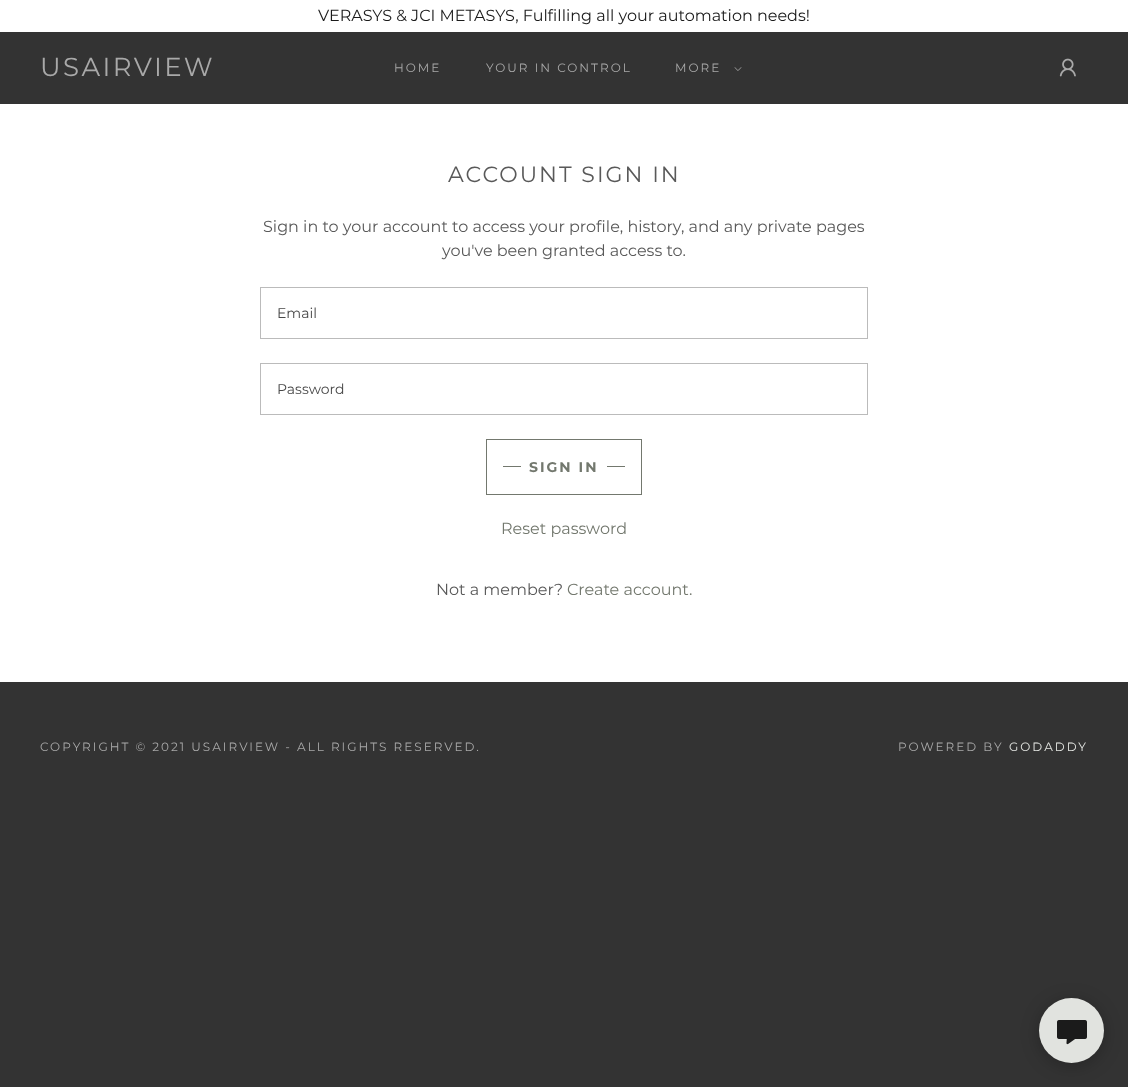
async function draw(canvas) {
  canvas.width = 1128
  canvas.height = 1087
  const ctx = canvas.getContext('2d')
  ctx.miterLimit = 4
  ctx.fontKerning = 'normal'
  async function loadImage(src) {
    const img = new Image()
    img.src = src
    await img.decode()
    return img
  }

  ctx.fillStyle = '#333'
  ctx.fillRect(0, 0, 1128, 1087)
  ctx.fillStyle = '#fff'
  ctx.fillRect(0, 0, 1128, 32)
  ctx.font = '16px Montserrat'
  ctx.fillStyle = '#1b1b1b'
  ctx.fillText('VERASYS & JCI METASYS, Fulfilling all your automation needs!', 318, 21)
  ctx.letterSpacing = '2.4px'
  ctx.font = '26px Montserrat'
  ctx.fillStyle = '#a9a9a9'
  ctx.fillText('USAIRVIEW', 40, 76)
  ctx.letterSpacing = '2px'
  ctx.font = '12px Montserrat'
  ctx.fillText('HOME', 394, 72)
  ctx.fillText('YOUR IN CONTROL', 486, 72)
  ctx.fillText('MORE', 675, 72)
  ctx.drawImage(await loadImage('image0.png'), 734, 67, 8, 4)
  ctx.drawImage(await loadImage('image1.png'), 1059, 58, 17, 19)
  ctx.fillStyle = '#fff'
  ctx.fillRect(0, 104, 1128, 578)
  ctx.font = '22px Montserrat'
  ctx.fillStyle = '#595959'
  ctx.fillText('ACCOUNT SIGN IN', 448, 182)
  ctx.letterSpacing = '0px'
  ctx.font = '16px Montserrat'
  ctx.fillText('Sign in to your account to access your profile, history, and any private pages', 263, 232)
  ctx.fillText('you\'ve been granted access to.', 442, 256)
  ctx.strokeStyle = '#bbb'
  ctx.strokeRect(260.5, 287.5, 607, 51)
  ctx.font = '14px Montserrat'
  ctx.fillStyle = '#474747'
  ctx.fillText('Email', 277, 318)
  ctx.strokeRect(260.5, 363.5, 607, 51)
  ctx.fillText('Password', 277, 394)
  ctx.strokeStyle = '#73786e'
  ctx.strokeRect(486.5, 439.5, 155, 55)
  ctx.fillStyle = '#73786e'
  ctx.fillRect(503, 466, 18, 1)
  ctx.letterSpacing = '2px'
  ctx.font = 'bold 14px Montserrat'
  ctx.fillText('SIGN IN', 529, 472)
  ctx.fillRect(607, 466, 18, 1)
  ctx.letterSpacing = '0px'
  ctx.font = '16px Montserrat'
  ctx.fillText('Reset password', 501, 534)
  ctx.fillStyle = '#595959'
  ctx.fillText('Not a member?', 436, 595)
  ctx.fillStyle = '#73786e'
  ctx.fillText('Create account.', 567, 595)
  ctx.letterSpacing = '2px'
  ctx.font = '12px Montserrat'
  ctx.fillStyle = '#a9a9a9'
  ctx.fillText('COPYRIGHT © 2021 USAIRVIEW - ALL RIGHTS RESERVED.', 40, 751)
  ctx.fillText('POWERED BY', 898, 751)
  ctx.fillStyle = '#e5e7e3'
  ctx.fillText('GODADDY', 1009, 751)
  ctx.fillStyle = '#00000040'
  ctx.filter = 'blur(9px)'
  ctx.beginPath()
  ctx.roundRect(1039, 1001, 65, 65, 32.5)
  ctx.fill()
  ctx.filter = 'none'
  ctx.fillStyle = '#e1e3df'
  ctx.beginPath()
  ctx.arc(1071.5, 1030.5, 32.5, 0, 2 * Math.PI)
  ctx.fill()
  ctx.drawImage(await loadImage('image2.png'), 1057, 1020, 30, 25)
}

draw(document.querySelector('canvas'))
